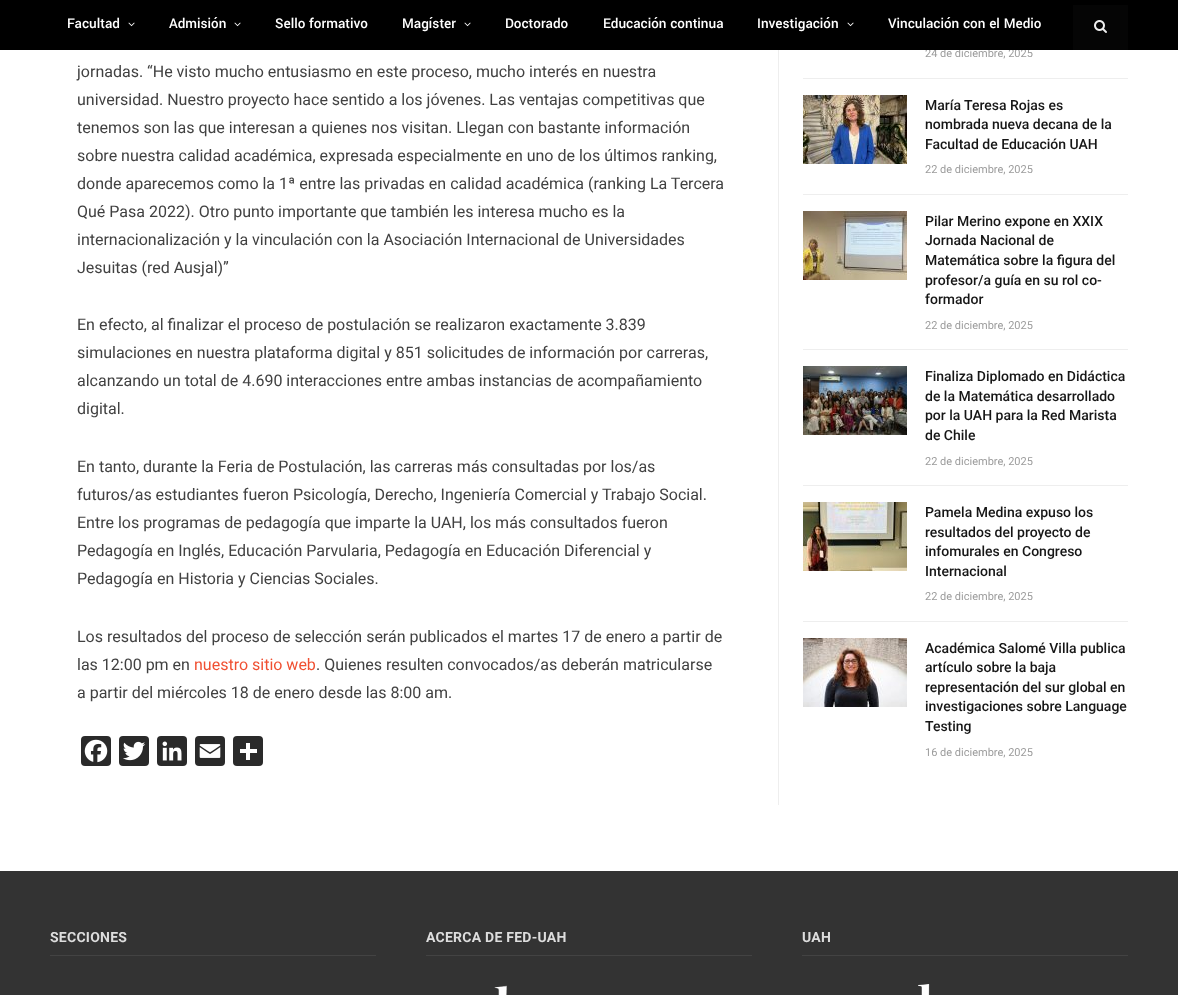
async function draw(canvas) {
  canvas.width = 1178
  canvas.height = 995
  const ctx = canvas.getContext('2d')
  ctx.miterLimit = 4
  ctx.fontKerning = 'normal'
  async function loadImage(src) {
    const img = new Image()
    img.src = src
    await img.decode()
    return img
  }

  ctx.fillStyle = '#fff'
  ctx.fillRect(0, 0, 1178, 995)
  ctx.font = '11px Roboto'
  ctx.fillStyle = '#9c9c9c'
  ctx.fillText('24 de diciembre, 2025', 925, 57)
  ctx.fillStyle = '#000'
  ctx.fillRect(0, 0, 1178, 50)
  ctx.font = '500 15px Yantramanav'
  ctx.fillStyle = '#fff'
  ctx.fillText('Facultad', 67, 28)
  ctx.drawImage(await loadImage('image0.png'), 128, 22, 7, 5)
  ctx.fillText('Admisión', 169, 28)
  ctx.drawImage(await loadImage('image0.png'), 234, 22, 7, 5)
  ctx.fillText('Sello formativo', 275, 28)
  ctx.fillText('Magíster', 402, 28)
  ctx.drawImage(await loadImage('image0.png'), 464, 22, 7, 5)
  ctx.fillText('Doctorado', 505, 28)
  ctx.fillText('Educación continua', 603, 28)
  ctx.fillText('Investigación', 757, 28)
  ctx.drawImage(await loadImage('image0.png'), 847, 22, 7, 5)
  ctx.fillText('Vinculación con el Medio', 888, 28)
  ctx.fillStyle = '#050505'
  ctx.fillRect(1073, 5, 55, 45)
  ctx.drawImage(await loadImage('image1.png'), 1094, 20, 13, 13)
  ctx.font = '16px Roboto'
  ctx.fillStyle = '#414141'
  ctx.fillText('jornadas. “He visto mucho entusiasmo en este proceso, mucho interés en nuestra', 77, 77)
  ctx.fillText('universidad. Nuestro proyecto hace sentido a los jóvenes. Las ventajas competitivas que', 77, 105)
  ctx.fillText('tenemos son las que interesan a quienes nos visitan. Llegan con bastante información', 77, 133)
  ctx.fillText('sobre nuestra calidad académica, expresada especialmente en uno de los últimos ranking,', 77, 161)
  ctx.fillText('donde aparecemos como la 1ª entre las privadas en calidad académica (ranking La Tercera', 77, 189)
  ctx.fillText('Qué Pasa 2022). Otro punto importante que también les interesa mucho es la', 77, 217)
  ctx.fillText('internacionalización y la vinculación con la Asociación Internacional de Universidades', 77, 245)
  ctx.fillText('Jesuitas (red Ausjal)”', 77, 273)
  ctx.fillText('En efecto, al finalizar el proceso de postulación se realizaron exactamente 3.839', 77, 330)
  ctx.fillText('simulaciones en nuestra plataforma digital y 851 solicitudes de información por carreras,', 77, 358)
  ctx.fillText('alcanzando un total de 4.690 interacciones entre ambas instancias de acompañamiento', 77, 386)
  ctx.fillText('digital.', 77, 414)
  ctx.fillText('En tanto, durante la Feria de Postulación, las carreras más consultadas por los/as', 77, 472)
  ctx.fillText('futuros/as estudiantes fueron Psicología, Derecho, Ingeniería Comercial y Trabajo Social.', 77, 500)
  ctx.fillText('Entre los programas de pedagogía que imparte la UAH, los más consultados fueron', 77, 528)
  ctx.fillText('Pedagogía en Inglés, Educación Parvularia, Pedagogía en Educación Diferencial y', 77, 556)
  ctx.fillText('Pedagogía en Historia y Ciencias Sociales.', 77, 584)
  ctx.fillText('Los resultados del proceso de selección serán publicados el martes 17 de enero a partir de', 77, 642)
  ctx.fillText('las 12:00 pm en', 77, 670)
  ctx.fillStyle = '#f05032'
  ctx.fillText('nuestro sitio web', 194, 670)
  ctx.fillStyle = '#414141'
  ctx.fillText('. Quienes resulten convocados/as deberán matricularse', 316, 670)
  ctx.fillText('a partir del miércoles 18 de enero desde las 8:00 am.', 77, 698)
  ctx.fillStyle = '#2a2a2a'
  ctx.beginPath()
  ctx.roundRect(81, 736, 30, 30, 4)
  ctx.fill()
  ctx.drawImage(await loadImage('image2.png'), 84, 739, 24, 24)
  ctx.beginPath()
  ctx.roundRect(119, 736, 30, 30, 4)
  ctx.fill()
  ctx.drawImage(await loadImage('image3.png'), 123, 741, 23, 20)
  ctx.beginPath()
  ctx.roundRect(157, 736, 30, 30, 4)
  ctx.fill()
  ctx.drawImage(await loadImage('image4.png'), 162, 741, 20, 20)
  ctx.beginPath()
  ctx.roundRect(195, 736, 30, 30, 4)
  ctx.fill()
  ctx.drawImage(await loadImage('image5.png'), 199, 744, 22, 14)
  ctx.beginPath()
  ctx.roundRect(233, 736, 30, 30, 4)
  ctx.fill()
  ctx.fillStyle = '#fff'
  ctx.fillRect(246, 743, 4, 17)
  ctx.fillRect(240, 749, 17, 4)
  ctx.fillStyle = '#eee'
  ctx.fillRect(778, 50, 1, 755)
  ctx.fillRect(803, 78, 325, 1)
  ctx.fillRect(803, 194, 325, 1)
  ctx.drawImage(await loadImage('image6.png'), 803, 95, 104, 69)
  ctx.font = '500 14px Roboto'
  ctx.fillStyle = '#161616'
  ctx.fillText('María Teresa Rojas es', 925, 110)
  ctx.fillText('nombrada nueva decana de la', 925, 129)
  ctx.fillText('Facultad de Educación UAH', 925, 149)
  ctx.font = '11px Roboto'
  ctx.fillStyle = '#9c9c9c'
  ctx.fillText('22 de diciembre, 2025', 925, 173)
  ctx.fillStyle = '#eee'
  ctx.fillRect(803, 349, 325, 1)
  ctx.drawImage(await loadImage('image7.png'), 803, 211, 104, 69)
  ctx.font = '500 14px Roboto'
  ctx.fillStyle = '#161616'
  ctx.fillText('Pilar Merino expone en XXIX', 925, 226)
  ctx.fillText('Jornada Nacional de', 925, 245)
  ctx.fillText('Matemática sobre la figura del', 925, 265)
  ctx.fillText('profesor/a guía en su rol co-', 925, 285)
  ctx.fillText('formador', 925, 304)
  ctx.font = '11px Roboto'
  ctx.fillStyle = '#9c9c9c'
  ctx.fillText('22 de diciembre, 2025', 925, 329)
  ctx.fillStyle = '#eee'
  ctx.fillRect(803, 485, 325, 1)
  ctx.drawImage(await loadImage('image8.png'), 803, 366, 104, 69)
  ctx.font = '500 14px Roboto'
  ctx.fillStyle = '#161616'
  ctx.fillText('Finaliza Diplomado en Didáctica', 925, 381)
  ctx.fillText('de la Matemática desarrollado', 925, 401)
  ctx.fillText('por la UAH para la Red Marista', 925, 420)
  ctx.fillText('de Chile', 925, 440)
  ctx.font = '11px Roboto'
  ctx.fillStyle = '#9c9c9c'
  ctx.fillText('22 de diciembre, 2025', 925, 465)
  ctx.fillStyle = '#eee'
  ctx.fillRect(803, 621, 325, 1)
  ctx.drawImage(await loadImage('image9.png'), 803, 502, 104, 69)
  ctx.font = '500 14px Roboto'
  ctx.fillStyle = '#161616'
  ctx.fillText('Pamela Medina expuso los', 925, 517)
  ctx.fillText('resultados del proyecto de', 925, 537)
  ctx.fillText('infomurales en Congreso', 925, 556)
  ctx.fillText('Internacional', 925, 576)
  ctx.font = '11px Roboto'
  ctx.fillStyle = '#9c9c9c'
  ctx.fillText('22 de diciembre, 2025', 925, 600)
  ctx.drawImage(await loadImage('image10.png'), 803, 638, 104, 69)
  ctx.font = '500 14px Roboto'
  ctx.fillStyle = '#161616'
  ctx.fillText('Académica Salomé Villa publica', 925, 653)
  ctx.fillText('artículo sobre la baja', 925, 672)
  ctx.fillText('representación del sur global en', 925, 692)
  ctx.fillText('investigaciones sobre Language', 925, 711)
  ctx.fillText('Testing', 925, 731)
  ctx.font = '11px Roboto'
  ctx.fillStyle = '#9c9c9c'
  ctx.fillText('16 de diciembre, 2025', 925, 756)
  ctx.fillStyle = '#333'
  ctx.fillRect(0, 871, 1178, 124)
  ctx.fillStyle = '#434343'
  ctx.fillRect(50, 955, 326, 1)
  ctx.letterSpacing = '0.25px'
  ctx.font = 'bold 14px Roboto'
  ctx.fillStyle = '#ddd'
  ctx.fillText('SECCIONES', 50, 942)
  ctx.fillStyle = '#434343'
  ctx.fillRect(426, 955, 326, 1)
  ctx.fillStyle = '#ddd'
  ctx.fillText('ACERCA DE FED-UAH', 426, 942)
  ctx.drawImage(await loadImage('image11.png'), 494, 985, 13, 10)
  ctx.fillStyle = '#434343'
  ctx.fillRect(802, 955, 326, 1)
  ctx.fillStyle = '#ddd'
  ctx.fillText('UAH', 802, 942)
  ctx.drawImage(await loadImage('image12.png'), 918, 984, 12, 11)
}

draw(document.querySelector('canvas'))
